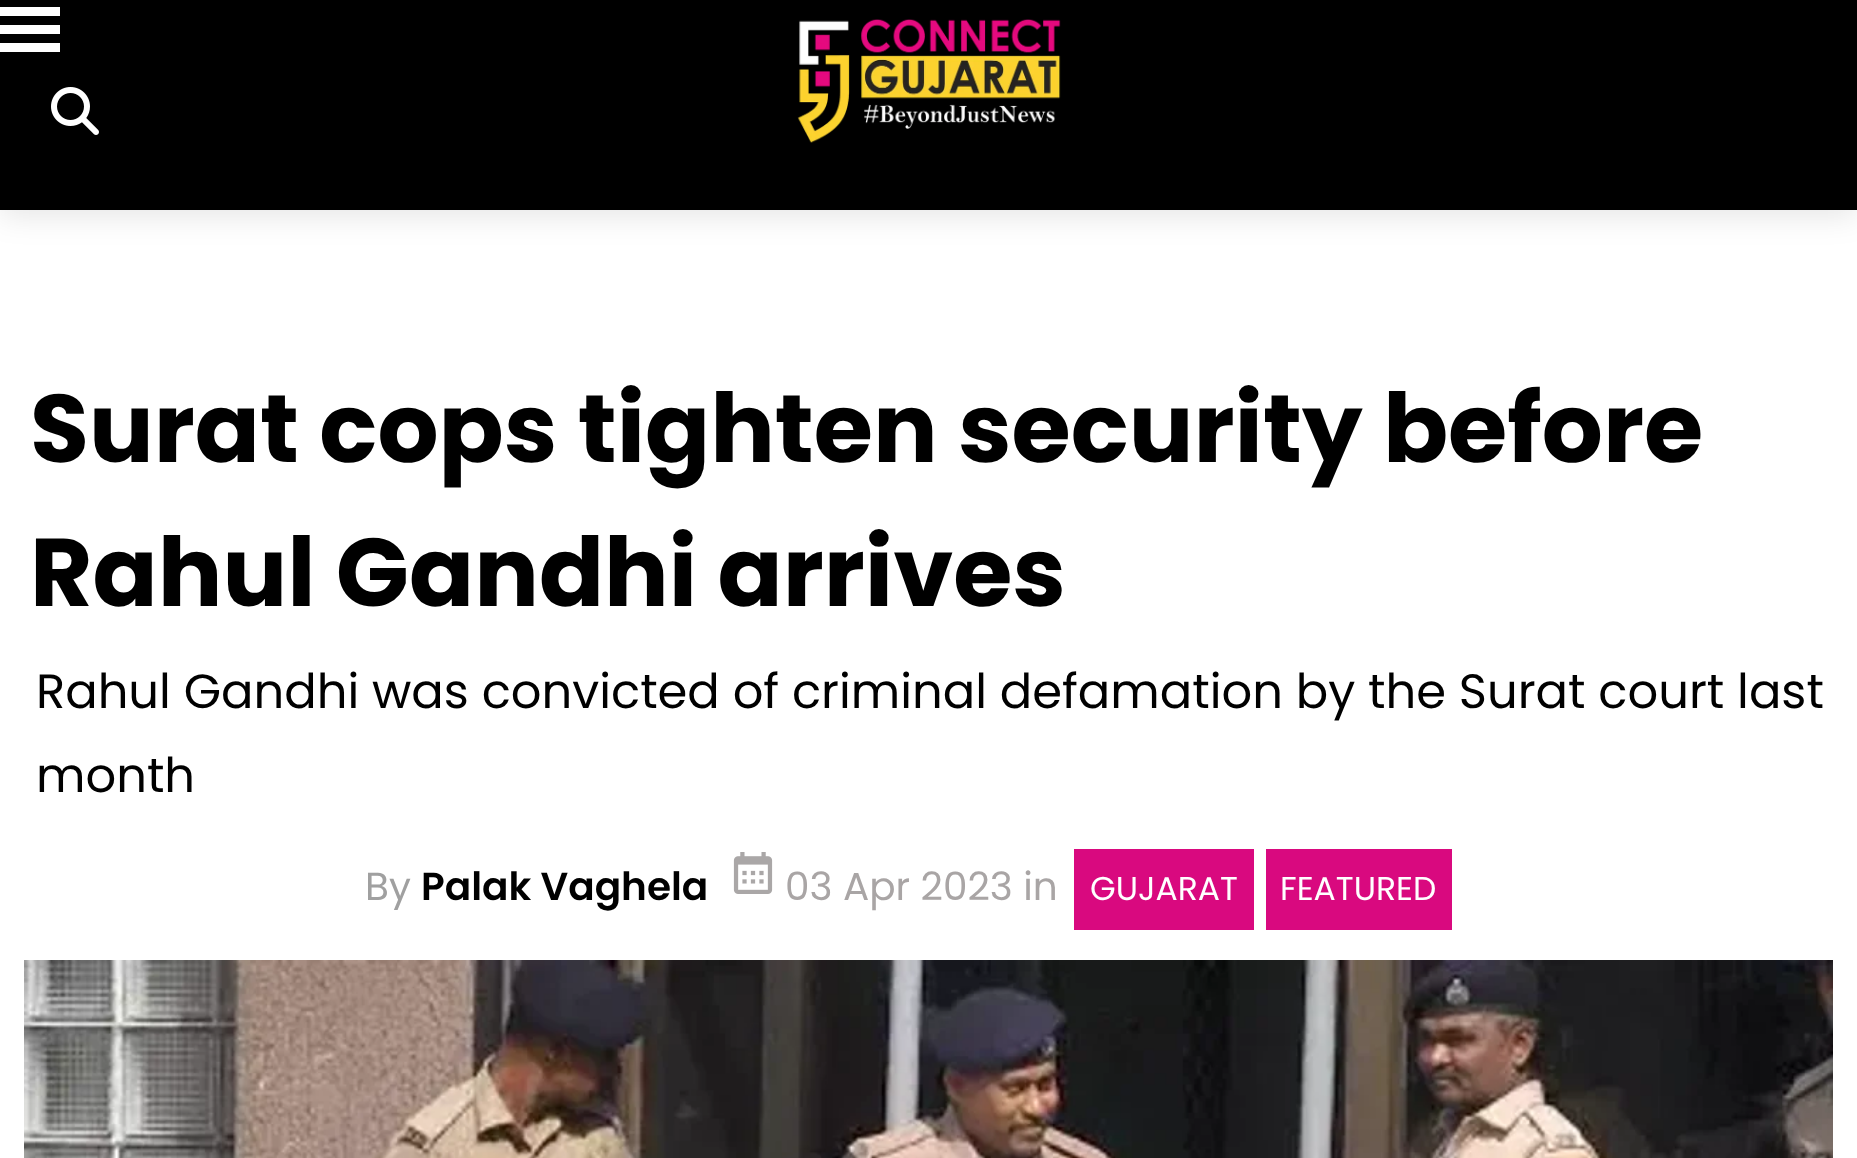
async function draw(canvas) {
  canvas.width = 1857
  canvas.height = 1158
  const ctx = canvas.getContext('2d')
  ctx.miterLimit = 4
  ctx.fontKerning = 'normal'
  async function loadImage(src) {
    const img = new Image()
    img.src = src
    await img.decode()
    return img
  }

  ctx.fillStyle = '#fff'
  ctx.fillRect(0, 0, 1857, 1158)
  ctx.fillStyle = '#0000001a'
  ctx.filter = 'blur(15px)'
  ctx.beginPath()
  ctx.rect(0, 6, 1857, 210)
  ctx.fill()
  ctx.filter = 'none'
  ctx.fillStyle = '#000'
  ctx.fillRect(0, 0, 1857, 210)
  ctx.fillStyle = '#fff'
  ctx.fillRect(0, 7, 60, 9)
  ctx.fillRect(0, 25, 60, 9)
  ctx.drawImage(await loadImage('image0.png'), 797, 19, 264, 124)
  ctx.fillRect(0, 43, 60, 9)
  ctx.drawImage(await loadImage('image1.png'), 51, 87, 48, 48)
  ctx.font = 'bold 96px Poppins'
  ctx.fillStyle = '#000'
  ctx.fillText('Surat cops tighten security before', 30, 462)
  ctx.fillText('Rahul Gandhi arrives', 30, 606)
  ctx.font = '48px Poppins'
  ctx.fillText('Rahul Gandhi was convicted of criminal defamation by the Surat court last', 36, 708)
  ctx.fillText('month', 36, 792)
  ctx.font = '39px Poppins'
  ctx.fillStyle = '#a0a0a0'
  ctx.fillText('By', 365, 900)
  ctx.font = '600 39px Poppins'
  ctx.fillStyle = '#000'
  ctx.fillText('Palak Vaghela', 421, 900)
  ctx.drawImage(await loadImage('image2.png'), 733, 852, 40, 42)
  ctx.font = '39px Poppins'
  ctx.fillStyle = '#a9a5a5'
  ctx.fillText('03 Apr 2023 in', 785, 900)
  ctx.fillStyle = '#d9097f'
  ctx.fillRect(1074, 849, 180, 81)
  ctx.font = '33px Poppins'
  ctx.fillStyle = '#fff'
  ctx.fillText('GUJARAT', 1090, 900)
  ctx.fillStyle = '#d9097f'
  ctx.fillRect(1266, 849, 186, 81)
  ctx.fillStyle = '#fff'
  ctx.fillText('FEATURED', 1280, 900)
  ctx.drawImage(await loadImage('image3.png'), 24, 960, 1809, 198)
}

draw(document.querySelector('canvas'))
